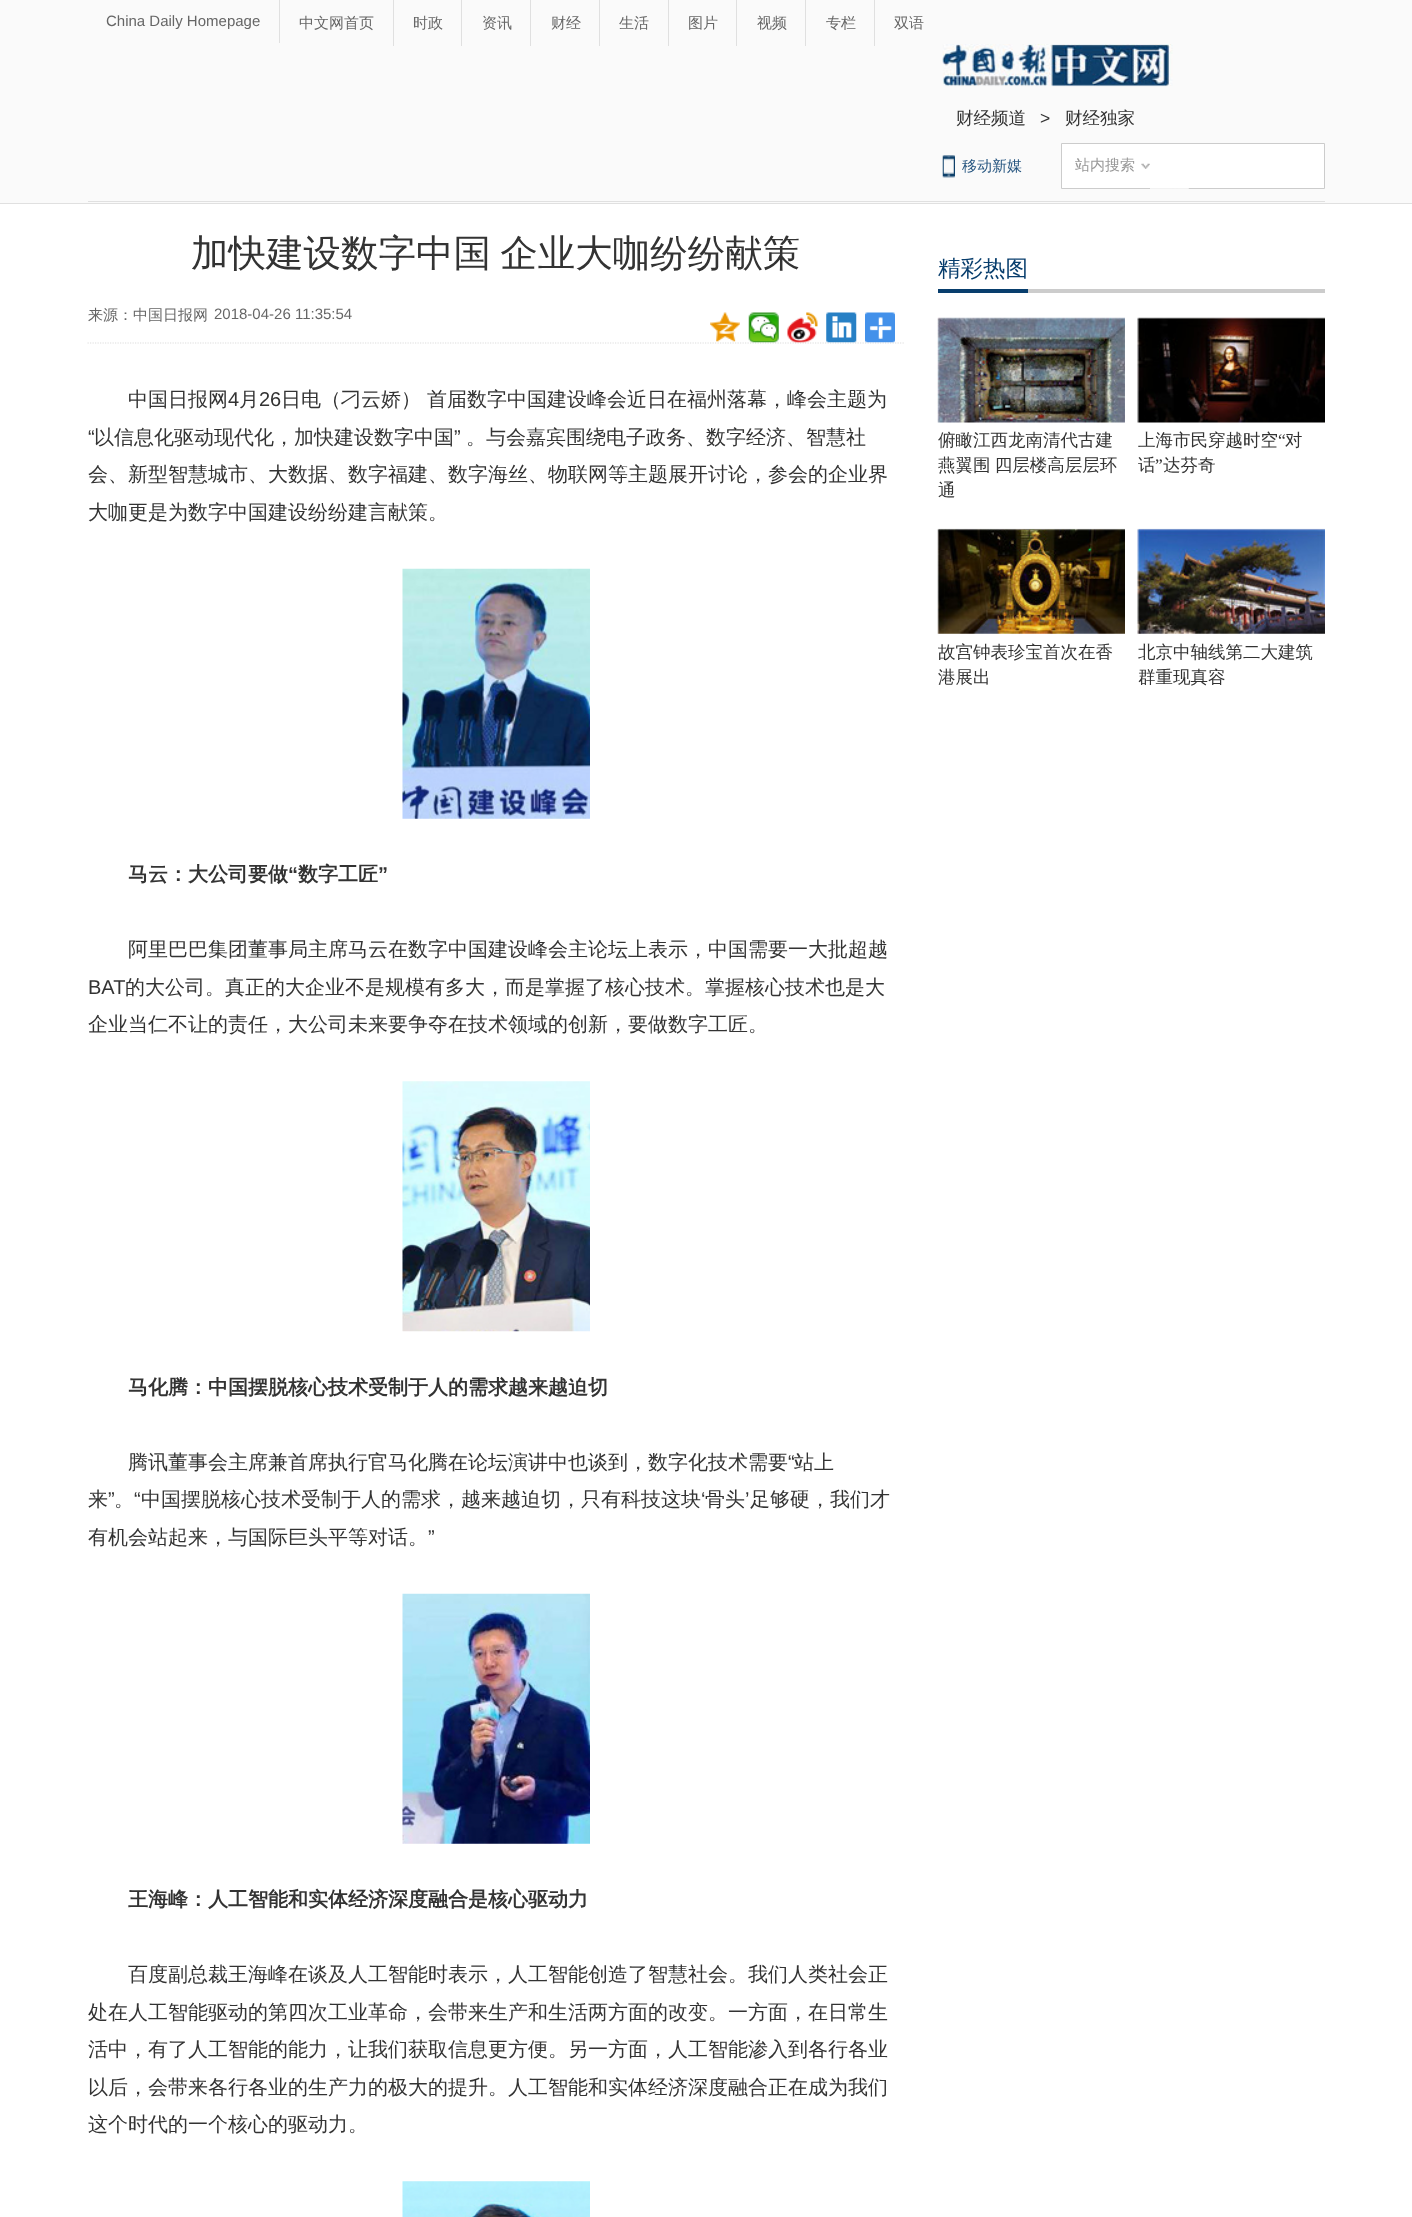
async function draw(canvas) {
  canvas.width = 1412
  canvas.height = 2217
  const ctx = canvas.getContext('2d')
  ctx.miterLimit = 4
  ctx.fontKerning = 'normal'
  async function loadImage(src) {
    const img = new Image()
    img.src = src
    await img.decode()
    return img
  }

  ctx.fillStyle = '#fff'
  ctx.fillRect(0, 0, 1412, 2217)
  ctx.fillStyle = '#fafafa'
  ctx.fillRect(0, 0, 1412, 203)
  ctx.fillStyle = '#e0e0e0'
  ctx.fillRect(0, 203, 1412, 1)
  ctx.fillRect(88, 201, 1237, 1)
  ctx.fillRect(279, 0, 1, 43)
  ctx.font = '15px Liberation Sans'
  ctx.fillStyle = '#666'
  ctx.fillText('China Daily Homepage', 106, 26)
  ctx.fillStyle = '#e0e0e0'
  ctx.fillRect(393, 0, 1, 46)
  ctx.font = '500 15px WenQuanYi Zen Hei'
  ctx.fillStyle = '#666'
  ctx.fillText('中文网首页', 299, 28)
  ctx.fillStyle = '#e0e0e0'
  ctx.fillRect(461, 0, 1, 46)
  ctx.fillStyle = '#666'
  ctx.fillText('时政', 413, 28)
  ctx.fillStyle = '#e0e0e0'
  ctx.fillRect(530, 0, 1, 46)
  ctx.fillStyle = '#666'
  ctx.fillText('资讯', 482, 28)
  ctx.fillStyle = '#e0e0e0'
  ctx.fillRect(599, 0, 1, 46)
  ctx.fillStyle = '#666'
  ctx.fillText('财经', 551, 28)
  ctx.fillStyle = '#e0e0e0'
  ctx.fillRect(668, 0, 1, 46)
  ctx.fillStyle = '#666'
  ctx.fillText('生活', 619, 28)
  ctx.fillStyle = '#e0e0e0'
  ctx.fillRect(736, 0, 1, 46)
  ctx.fillStyle = '#666'
  ctx.fillText('图片', 688, 28)
  ctx.fillStyle = '#e0e0e0'
  ctx.fillRect(805, 0, 1, 46)
  ctx.fillStyle = '#666'
  ctx.fillText('视频', 757, 28)
  ctx.fillStyle = '#e0e0e0'
  ctx.fillRect(874, 0, 1, 46)
  ctx.fillStyle = '#666'
  ctx.fillText('专栏', 826, 28)
  ctx.fillText('双语', 894, 28)
  ctx.drawImage(await loadImage('image0.png'), 942, 44, 231, 43)
  ctx.font = '500 17.5px WenQuanYi Zen Hei'
  ctx.fillStyle = '#333'
  ctx.fillText('财经频道', 956, 124)
  ctx.font = '17.5px Liberation Sans'
  ctx.fillText('>', 1040, 124)
  ctx.font = '500 17.5px WenQuanYi Zen Hei'
  ctx.fillText('财经独家', 1065, 124)
  ctx.drawImage(await loadImage('image1.png'), 942, 155, 13, 23)
  ctx.font = '500 15px WenQuanYi Zen Hei'
  ctx.fillStyle = '#275680'
  ctx.fillText('移动新媒', 962, 171)
  ctx.fillStyle = '#fff'
  ctx.beginPath()
  ctx.rect(1061.5, 143.5, 263, 45)
  ctx.fill()
  ctx.strokeStyle = '#ccc'
  ctx.stroke()
  ctx.drawImage(await loadImage('image2.png'), 1141, 163, 9, 6)
  ctx.fillStyle = '#999'
  ctx.fillText('站内搜索', 1075, 170)
  ctx.drawImage(await loadImage('image3.png'), 1150, 188, 39, 1)
  ctx.wordSpacing = '-2px'
  ctx.font = '500 37.5px WenQuanYi Zen Hei'
  ctx.fillStyle = '#333'
  ctx.fillText('加快建设数字中国 企业大咖纷纷献策', 191, 266)
  ctx.beginPath()
  ctx.moveTo(87.5, 343)
  ctx.lineTo(904, 343)
  ctx.strokeStyle = '#ddd'
  ctx.lineWidth = 1.2
  ctx.setLineDash([1.25, 1.25])
  ctx.stroke()
  ctx.wordSpacing = '0px'
  ctx.font = '500 15px WenQuanYi Zen Hei'
  ctx.fillStyle = '#666'
  ctx.fillText('来源：中国日报网', 88, 320)
  ctx.font = '15px Liberation Sans'
  ctx.fillText('2018-04-26 11:35:54', 214, 319)
  ctx.drawImage(await loadImage('image4.png'), 710, 312, 30, 30)
  ctx.drawImage(await loadImage('image5.png'), 748, 312, 31, 31)
  ctx.drawImage(await loadImage('image6.png'), 787, 312, 31, 31)
  ctx.drawImage(await loadImage('image7.png'), 826, 312, 31, 31)
  ctx.drawImage(await loadImage('image8.png'), 865, 312, 30, 31)
  ctx.font = '500 20px WenQuanYi Zen Hei'
  ctx.fillStyle = '#333'
  ctx.fillText('中国日报网', 128, 406)
  ctx.font = '20px Liberation Sans'
  ctx.fillText('4', 228, 406)
  ctx.font = '500 20px WenQuanYi Zen Hei'
  ctx.fillText('月', 239, 406)
  ctx.font = '20px Liberation Sans'
  ctx.fillText('26', 259, 406)
  ctx.font = '500 20px WenQuanYi Zen Hei'
  ctx.fillText('日电（刁云娇） 首届数字中国建设峰会近日在福州落幕，峰会主题为', 281, 406)
  ctx.font = '20px Liberation Sans'
  ctx.fillText('“', 88, 444)
  ctx.font = '500 20px WenQuanYi Zen Hei'
  ctx.fillText('以信息化驱动现代化，加快建设数字中国', 94, 444)
  ctx.font = '20px Liberation Sans'
  ctx.fillText('”', 454, 444)
  ctx.font = '500 20px WenQuanYi Zen Hei'
  ctx.fillText('。与会嘉宾围绕电子政务、数字经济、智慧社', 466, 444)
  ctx.fillText('会、新型智慧城市、大数据、数字福建、数字海丝、物联网等主题展开讨论，参会的企业界', 88, 481)
  ctx.fillText('大咖更是为数字中国建设纷纷建言献策。', 88, 519)
  ctx.drawImage(await loadImage('image9.png'), 402, 568, 188, 251)
  ctx.font = 'bold 20px WenQuanYi Zen Hei'
  ctx.fillText('马云：大公司要做', 128, 881)
  ctx.font = 'bold 20px Liberation Sans'
  ctx.fillText('“', 288, 881)
  ctx.font = 'bold 20px WenQuanYi Zen Hei'
  ctx.fillText('数字工匠', 298, 881)
  ctx.font = 'bold 20px Liberation Sans'
  ctx.fillText('”', 378, 881)
  ctx.font = '500 20px WenQuanYi Zen Hei'
  ctx.fillText('阿里巴巴集团董事局主席马云在数字中国建设峰会主论坛上表示，中国需要一大批超越', 128, 956)
  ctx.font = '20px Liberation Sans'
  ctx.fillText('BAT', 88, 994)
  ctx.font = '500 20px WenQuanYi Zen Hei'
  ctx.fillText('的大公司。真正的大企业不是规模有多大，而是掌握了核心技术。掌握核心技术也是大', 125, 994)
  ctx.fillText('企业当仁不让的责任，大公司未来要争夺在技术领域的创新，要做数字工匠。', 88, 1031)
  ctx.drawImage(await loadImage('image10.png'), 402, 1081, 188, 251)
  ctx.font = 'bold 20px WenQuanYi Zen Hei'
  ctx.fillText('马化腾：中国摆脱核心技术受制于人的需求越来越迫切', 128, 1394)
  ctx.font = '500 20px WenQuanYi Zen Hei'
  ctx.fillText('腾讯董事会主席兼首席执行官马化腾在论坛演讲中也谈到，数字化技术需要', 128, 1469)
  ctx.font = '20px Liberation Sans'
  ctx.fillText('“', 788, 1469)
  ctx.font = '500 20px WenQuanYi Zen Hei'
  ctx.fillText('站上', 794, 1469)
  ctx.fillText('来', 88, 1506)
  ctx.font = '20px Liberation Sans'
  ctx.fillText('”', 108, 1506)
  ctx.fillText('“', 134, 1506)
  ctx.font = '500 20px WenQuanYi Zen Hei'
  ctx.fillText('中国摆脱核心技术受制于人的需求，越来越迫切，只有科技这块', 141, 1506)
  ctx.font = '20px Liberation Sans'
  ctx.fillText('‘', 701, 1506)
  ctx.font = '500 20px WenQuanYi Zen Hei'
  ctx.fillText('骨头', 705, 1506)
  ctx.font = '20px Liberation Sans'
  ctx.fillText('’', 745, 1506)
  ctx.font = '500 20px WenQuanYi Zen Hei'
  ctx.fillText('足够硬，我们才', 750, 1506)
  ctx.fillText('。', 114, 1506)
  ctx.fillText('有机会站起来，与国际巨头平等对话。', 88, 1544)
  ctx.font = '20px Liberation Sans'
  ctx.fillText('”', 428, 1544)
  ctx.drawImage(await loadImage('image11.png'), 402, 1593, 188, 251)
  ctx.font = 'bold 20px WenQuanYi Zen Hei'
  ctx.fillText('王海峰：人工智能和实体经济深度融合是核心驱动力', 128, 1906)
  ctx.font = '500 20px WenQuanYi Zen Hei'
  ctx.fillText('百度副总裁王海峰在谈及人工智能时表示，人工智能创造了智慧社会。我们人类社会正', 128, 1981)
  ctx.fillText('处在人工智能驱动的第四次工业革命，会带来生产和生活两方面的改变。一方面，在日常生', 88, 2019)
  ctx.fillText('活中，有了人工智能的能力，让我们获取信息更方便。另一方面，人工智能渗入到各行各业', 88, 2056)
  ctx.fillText('以后，会带来各行各业的生产力的极大的提升。人工智能和实体经济深度融合正在成为我们', 88, 2094)
  ctx.fillText('这个时代的一个核心的驱动力。', 88, 2131)
  ctx.drawImage(await loadImage('image12.png'), 402, 2181, 188, 36)
  ctx.fillStyle = '#ccc'
  ctx.fillRect(1028, 289, 297, 4)
  ctx.fillStyle = '#083e6d'
  ctx.fillRect(938, 289, 90, 4)
  ctx.font = '500 22.5px WenQuanYi Zen Hei'
  ctx.fillText('精彩热图', 938, 276)
  ctx.drawImage(await loadImage('image13.png'), 937, 317, 188, 106)
  ctx.font = '500 17.5px WenQuanYi Zen Hei'
  ctx.fillStyle = '#333'
  ctx.fillText('俯瞰江西龙南清代古建', 938, 446)
  ctx.wordSpacing = '-1px'
  ctx.fillText('燕翼围 四层楼高层层环', 938, 471)
  ctx.wordSpacing = '0px'
  ctx.fillText('通', 938, 496)
  ctx.drawImage(await loadImage('image14.png'), 1137, 317, 188, 106)
  ctx.fillText('上海市民穿越时空', 1138, 446)
  ctx.font = '17.5px Liberation Serif'
  ctx.fillText('“', 1278, 446)
  ctx.font = '500 17.5px WenQuanYi Zen Hei'
  ctx.fillText('对', 1285, 446)
  ctx.fillText('话', 1138, 471)
  ctx.font = '17.5px Liberation Serif'
  ctx.fillText('”', 1155, 471)
  ctx.font = '500 17.5px WenQuanYi Zen Hei'
  ctx.fillText('达芬奇', 1163, 471)
  ctx.drawImage(await loadImage('image15.png'), 937, 528, 188, 106)
  ctx.fillText('故宫钟表珍宝首次在香', 938, 658)
  ctx.fillText('港展出', 938, 683)
  ctx.drawImage(await loadImage('image16.png'), 1137, 528, 188, 106)
  ctx.fillText('北京中轴线第二大建筑', 1138, 658)
  ctx.fillText('群重现真容', 1138, 683)
}

draw(document.querySelector('canvas'))
